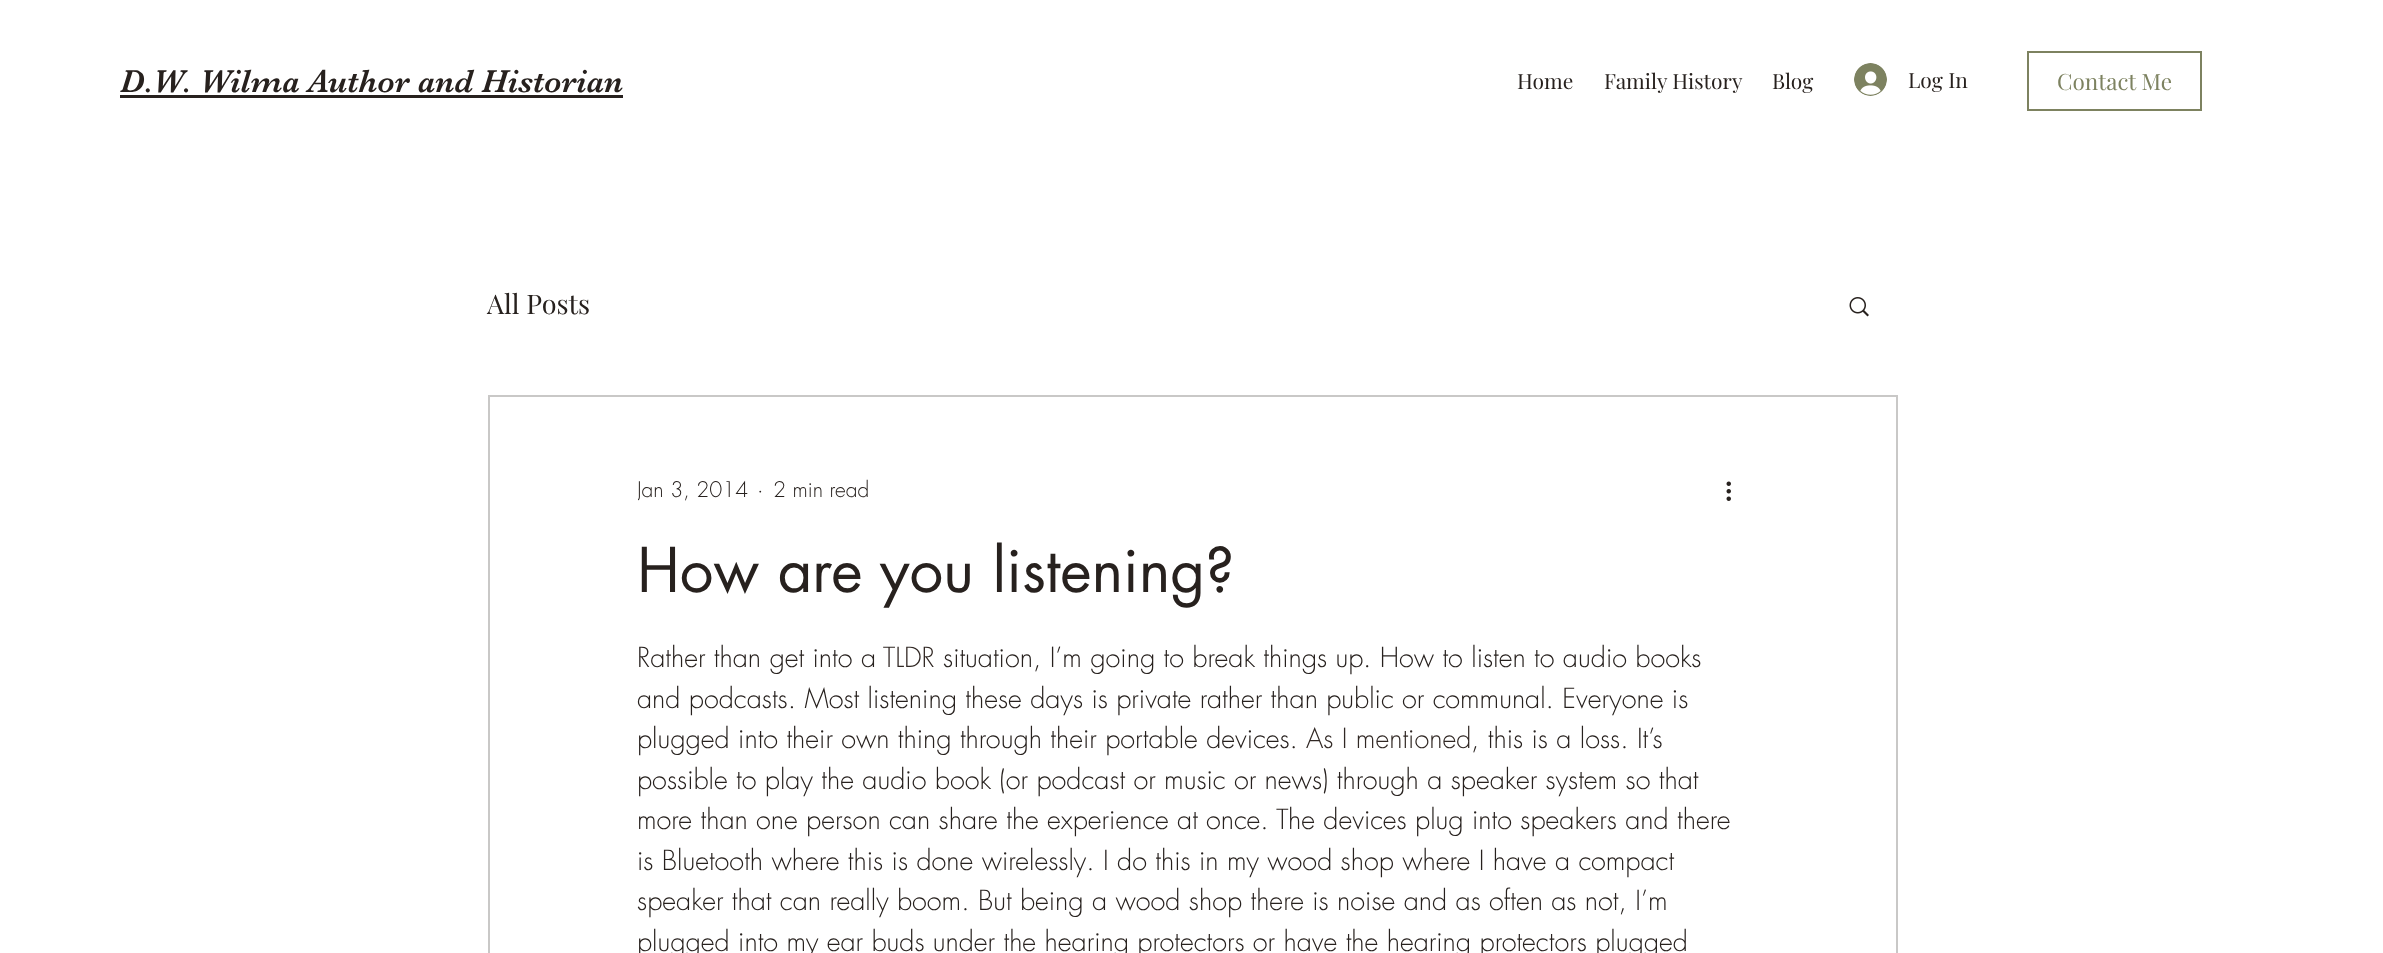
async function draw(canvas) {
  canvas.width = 2383
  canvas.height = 953
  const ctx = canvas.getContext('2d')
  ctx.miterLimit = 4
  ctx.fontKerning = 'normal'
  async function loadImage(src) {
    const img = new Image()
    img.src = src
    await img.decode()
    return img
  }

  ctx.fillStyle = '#fff'
  ctx.fillRect(0, 0, 2383, 953)
  ctx.font = '33px "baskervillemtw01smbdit"'
  ctx.fillStyle = '#27211e'
  ctx.fillText('D.W. Wilma Author and Historian', 120, 92)
  ctx.fillRect(120, 95, 503, 3)
  ctx.font = '21px Playfair Display'
  ctx.fillText('Home', 1517, 89)
  ctx.fillText('Family History', 1604, 89)
  ctx.fillText('Blog', 1772, 89)
  ctx.drawImage(await loadImage('image0.png'), 1854, 63, 33, 33)
  ctx.fillText('Log In', 1908, 88)
  ctx.strokeStyle = '#7d8260'
  ctx.lineWidth = 2
  ctx.strokeRect(2028, 52, 173, 58)
  ctx.font = '22.5px Playfair Display'
  ctx.fillStyle = '#7d8260'
  ctx.fillText('Contact Me', 2057, 90)
  ctx.font = '27px Playfair Display'
  ctx.fillStyle = '#27211e'
  ctx.fillText('All Posts', 487, 314)
  ctx.drawImage(await loadImage('image1.png'), 1849, 297, 20, 20)
  ctx.strokeStyle = '#c9c8c7'
  ctx.strokeRect(489, 396, 1408, 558)
  ctx.save()
  ctx.beginPath()
  ctx.rect(638, 474, 111, 32)
  ctx.clip()
  ctx.font = '300 21px futura'
  ctx.fillText('Jan 3, 2014', 637, 497)
  ctx.restore()
  ctx.font = '300 21px futura'
  ctx.fillText('·', 757, 497)
  ctx.fillText('2 min read', 773, 497)
  ctx.drawImage(await loadImage('image2.png'), 1726, 481, 5, 20)
  ctx.font = '60px futura'
  ctx.fillText('How are you listening?', 637, 592)
  ctx.font = '300 27px futura'
  ctx.fillText('Rather than get into a', 637, 667)
  ctx.fillStyle = '#312824'
  ctx.fillText('TLDR', 883, 667)
  ctx.fillStyle = '#27211e'
  ctx.fillText('situation, I’m going to break things up. How to listen to audio books', 943, 667)
  ctx.fillText('and podcasts. Most listening these days is private rather than public or communal. Everyone is', 637, 708)
  ctx.fillText('plugged into their own thing through their portable devices.', 637, 748)
  ctx.fillStyle = '#312824'
  ctx.fillText('As I mentioned', 1306, 748)
  ctx.fillStyle = '#27211e'
  ctx.fillText(', this is a loss. It’s', 1471, 748)
  ctx.fillText('possible to play the audio book (or podcast or music or news) through a speaker system so that', 637, 789)
  ctx.fillText('more than one person can share the experience at once. The devices plug into speakers and there', 637, 829)
  ctx.fillText('is Bluetooth where this is done wirelessly. I do this in my wood shop where I have a compact', 637, 870)
  ctx.fillText('speaker that can really boom. But being a wood shop there is noise and as often as not, I’m', 637, 910)
  ctx.fillText('plugged into my ear buds under the hearing protectors or have the hearing protectors plugged', 637, 951)
}

draw(document.querySelector('canvas'))
